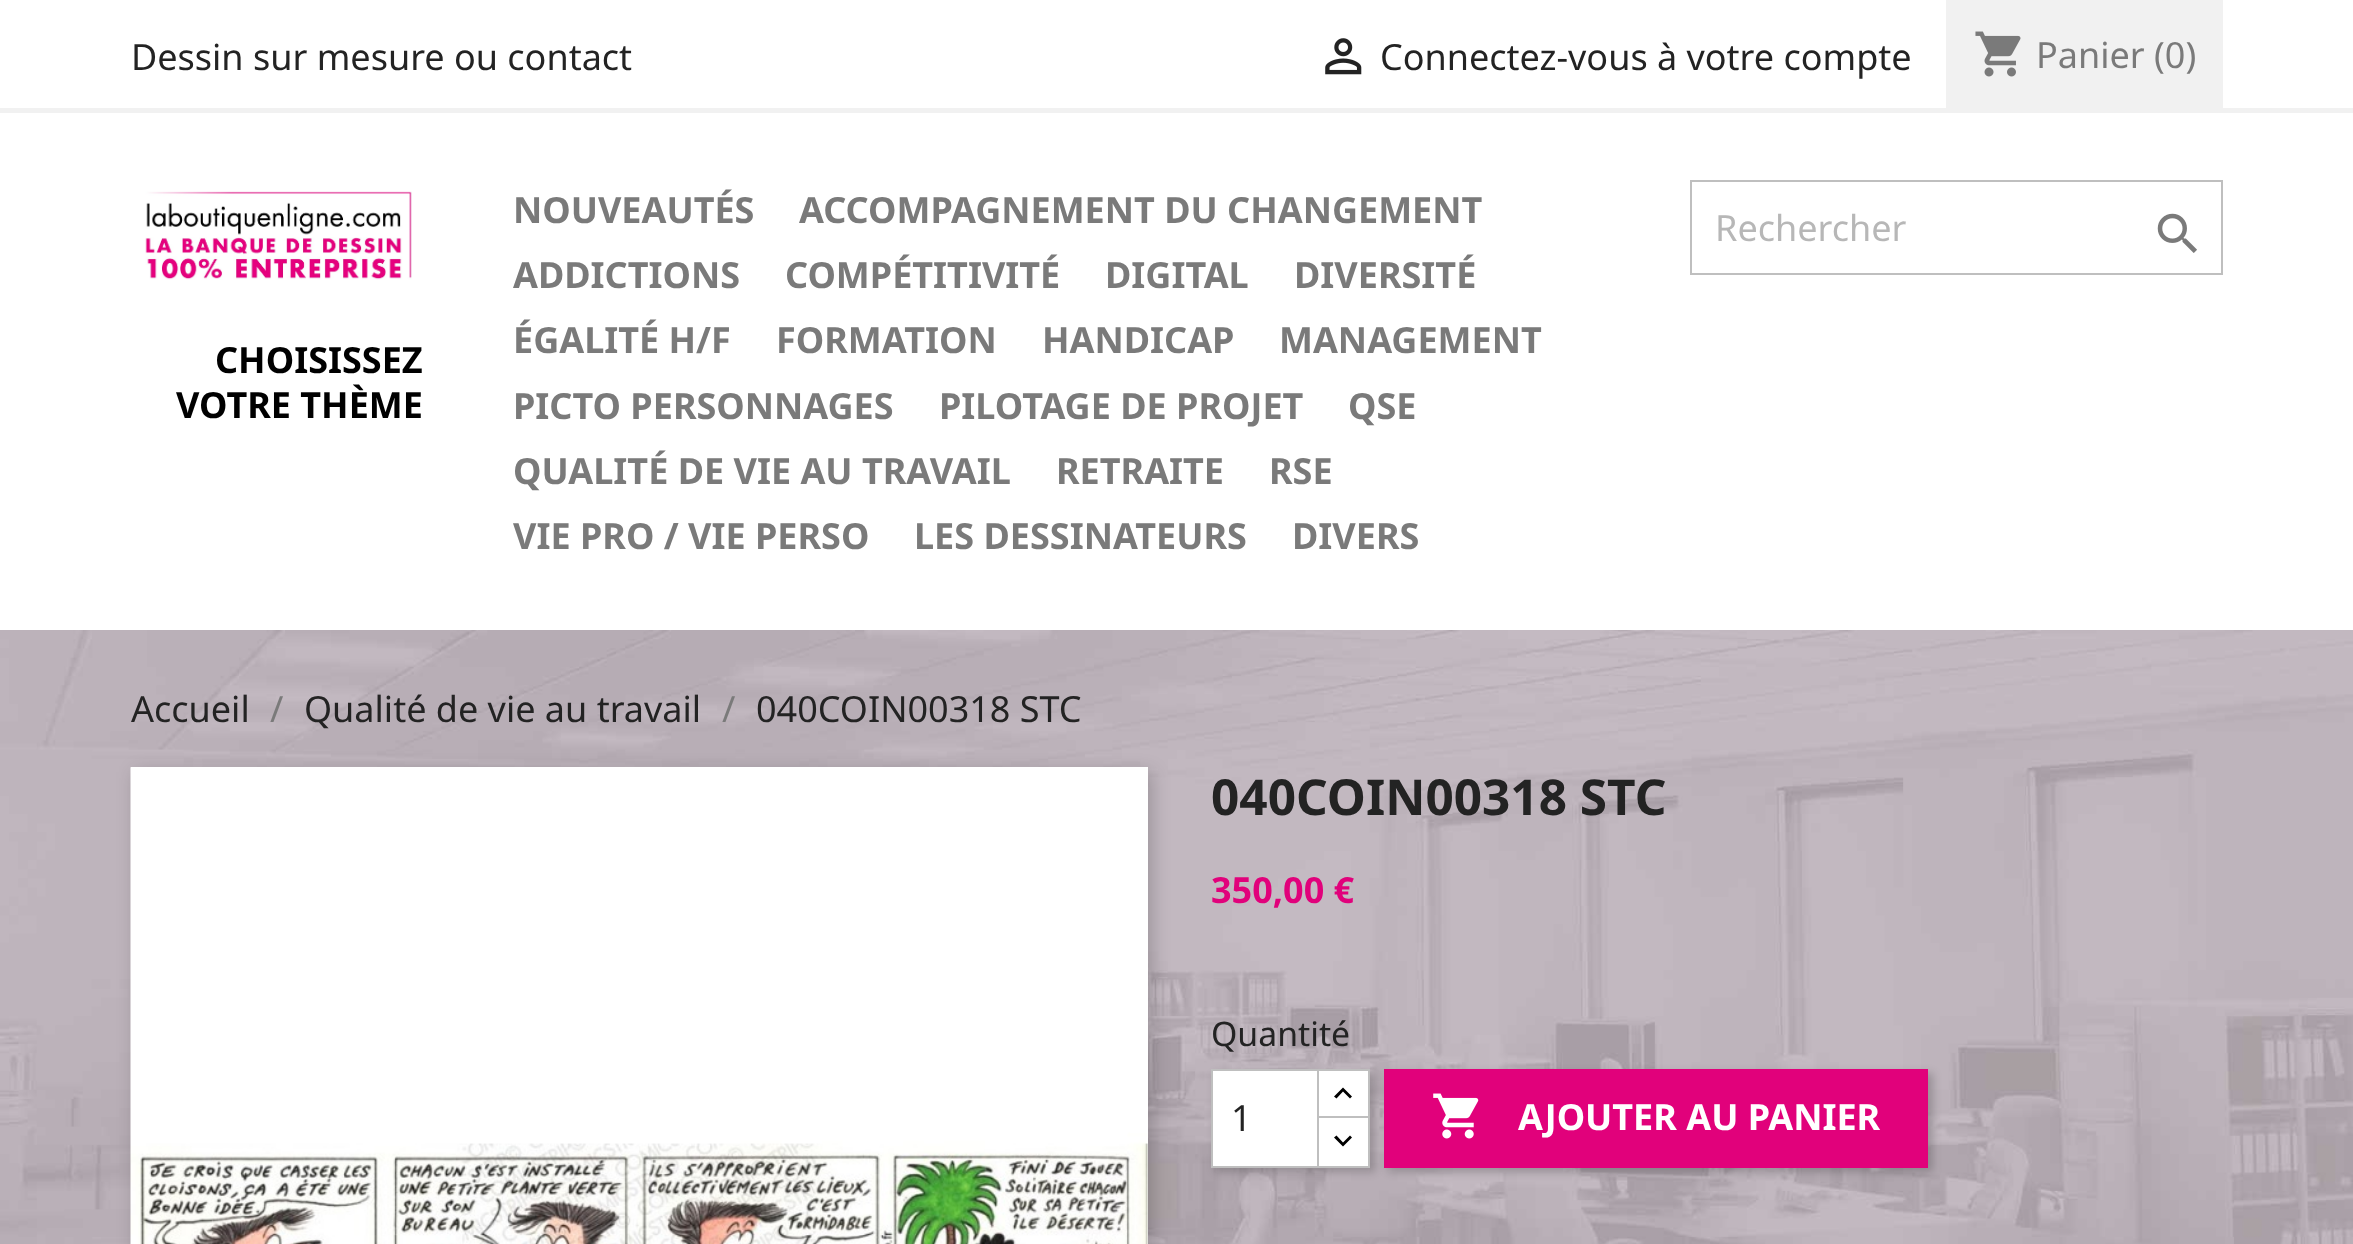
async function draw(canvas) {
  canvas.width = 2353
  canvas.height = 1244
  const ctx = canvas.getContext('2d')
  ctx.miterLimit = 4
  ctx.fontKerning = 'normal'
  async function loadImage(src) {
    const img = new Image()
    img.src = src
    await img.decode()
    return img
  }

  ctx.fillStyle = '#fff'
  ctx.fillRect(0, 0, 2353, 1244)
  ctx.fillStyle = '#f1f1f1'
  ctx.fillRect(0, 108, 2353, 5)
  ctx.font = '36px Noto Sans'
  ctx.fillStyle = '#232323'
  ctx.fillText('Dessin sur mesure ou contact', 131, 70)
  ctx.drawImage(await loadImage('image0.png'), 1325, 38, 37, 37)
  ctx.fillText('Connectez-vous à votre compte', 1380, 70)
  ctx.fillStyle = '#f1f1f1'
  ctx.fillRect(1946, 0, 277, 108)
  ctx.drawImage(await loadImage('image1.png'), 1975, 31, 46, 46)
  ctx.fillStyle = '#7a7a7a'
  ctx.fillText('Panier (0)', 2036, 68)
  ctx.drawImage(await loadImage('image2.png'), 145, 191, 267, 89)
  ctx.font = 'bold 36px Noto Sans'
  ctx.fillStyle = '#000'
  ctx.fillText('CHOISISSEZ', 215, 373)
  ctx.fillText('VOTRE THÈME', 176, 418)
  ctx.fillStyle = '#7a7a7a'
  ctx.fillText('NOUVEAUTÉS', 513, 223)
  ctx.fillText('ACCOMPAGNEMENT DU CHANGEMENT', 799, 223)
  ctx.fillText('ADDICTIONS', 513, 288)
  ctx.fillText('COMPÉTITIVITÉ', 785, 288)
  ctx.fillText('DIGITAL', 1105, 288)
  ctx.fillText('DIVERSITÉ', 1294, 288)
  ctx.fillText('ÉGALITÉ H/F', 513, 353)
  ctx.fillText('FORMATION', 776, 353)
  ctx.fillText('HANDICAP', 1042, 353)
  ctx.fillText('MANAGEMENT', 1279, 353)
  ctx.fillText('PICTO PERSONNAGES', 513, 419)
  ctx.fillText('PILOTAGE DE PROJET', 939, 419)
  ctx.fillText('QSE', 1348, 419)
  ctx.fillText('QUALITÉ DE VIE AU TRAVAIL', 513, 484)
  ctx.fillText('RETRAITE', 1056, 484)
  ctx.fillText('RSE', 1269, 484)
  ctx.fillText('VIE PRO / VIE PERSO', 513, 549)
  ctx.fillText('LES DESSINATEURS', 914, 549)
  ctx.fillText('DIVERS', 1292, 549)
  ctx.strokeStyle = '#bfbfbf'
  ctx.lineWidth = 2
  ctx.strokeRect(1691, 181, 531, 93)
  ctx.font = '36px Noto Sans'
  ctx.fillStyle = '#b7b7b7'
  ctx.fillText('Rechercher', 1715, 241)
  ctx.drawImage(await loadImage('image3.png'), 2157, 213, 40, 40)
  ctx.drawImage(await loadImage('image4.png'), 0, 630, 2353, 614)
  ctx.fillStyle = '#232323'
  ctx.fillText('Accueil', 131, 722)
  ctx.fillStyle = '#7a7a7a'
  ctx.fillText('/', 270, 722)
  ctx.fillStyle = '#232323'
  ctx.fillText('Qualité de vie au travail', 304, 722)
  ctx.fillStyle = '#7a7a7a'
  ctx.fillText('/', 722, 722)
  ctx.fillStyle = '#232323'
  ctx.fillText('040COIN00318 STC', 756, 722)
  ctx.fillStyle = '#00000033'
  ctx.filter = 'blur(9px)'
  ctx.beginPath()
  ctx.rect(135, 772, 1017, 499)
  ctx.fill()
  ctx.filter = 'none'
  ctx.fillStyle = '#fff'
  ctx.fillRect(131, 767, 1017, 477)
  ctx.drawImage(await loadImage('image5.png'), 130, 767, 1018, 477)
  ctx.font = 'bold 49.5px Noto Sans'
  ctx.fillStyle = '#232323'
  ctx.fillText('040COIN00318 STC', 1211, 815)
  ctx.font = 'bold 36px Noto Sans'
  ctx.fillStyle = '#e1017b'
  ctx.fillText('350,00 €', 1211, 903)
  ctx.font = '33.75px Noto Sans'
  ctx.fillStyle = '#232323'
  ctx.fillText('Quantité', 1211, 1046)
  ctx.fillStyle = '#00000033'
  ctx.filter = 'blur(4.5px)'
  ctx.beginPath()
  ctx.rect(1388, 1073, 545, 99)
  ctx.fill()
  ctx.filter = 'none'
  ctx.fillStyle = '#e1017b'
  ctx.fillRect(1384, 1069, 544, 99)
  ctx.fillStyle = '#00000033'
  ctx.filter = 'blur(4.5px)'
  ctx.beginPath()
  ctx.rect(1215, 1073, 160, 99)
  ctx.fill()
  ctx.filter = 'none'
  ctx.fillStyle = '#fff'
  ctx.fillRect(1319, 1071, 49, 45)
  ctx.strokeRect(1317, 1070, 52, 50)
  ctx.fillRect(1319, 1118, 49, 48)
  ctx.strokeRect(1317, 1117, 52, 50)
  ctx.beginPath()
  ctx.rect(1212, 1070, 106, 97)
  ctx.fill()
  ctx.stroke()
  ctx.font = '36px Noto Sans'
  ctx.fillStyle = '#232323'
  ctx.fillText('1', 1231, 1131)
  ctx.fillStyle = '#000'
  ctx.beginPath()
  ctx.moveTo(1343, 1087.5)
  ctx.lineTo(1352, 1096.5)
  ctx.lineTo(1350, 1098.5)
  ctx.lineTo(1343, 1091.5)
  ctx.lineTo(1336.5, 1098.5)
  ctx.lineTo(1334, 1096.5)
  ctx.closePath()
  ctx.fill()
  ctx.beginPath()
  ctx.moveTo(1350, 1135.5)
  ctx.lineTo(1352, 1137.5)
  ctx.lineTo(1343, 1146.5)
  ctx.lineTo(1334, 1137.5)
  ctx.lineTo(1336.5, 1135.5)
  ctx.lineTo(1343, 1142.5)
  ctx.closePath()
  ctx.fill()
  ctx.drawImage(await loadImage('image6.png'), 1433, 1093, 46, 46)
  ctx.font = 'bold 36px Noto Sans'
  ctx.fillStyle = '#fff'
  ctx.fillText('AJOUTER AU PANIER', 1518, 1130)
}

draw(document.querySelector('canvas'))
